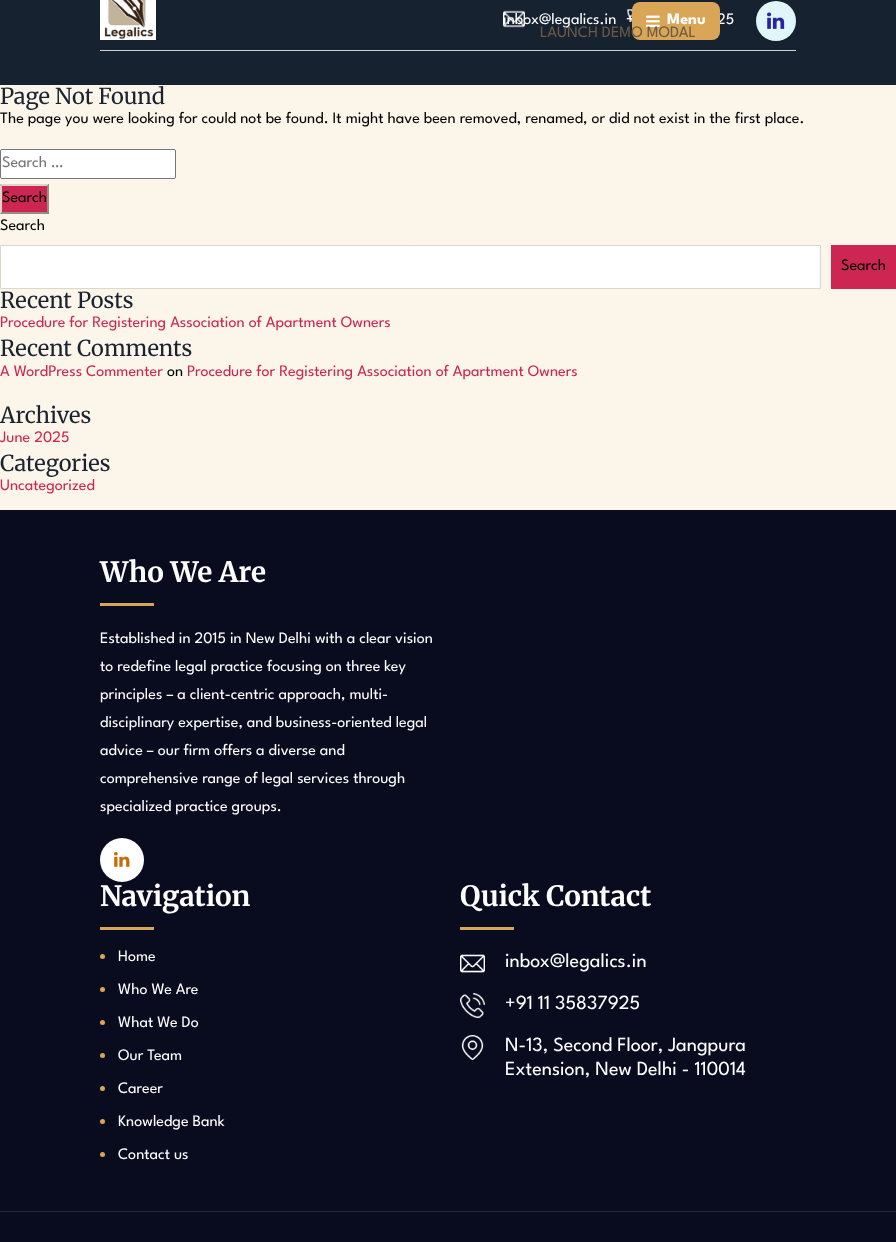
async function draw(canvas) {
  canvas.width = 896
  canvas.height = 1242
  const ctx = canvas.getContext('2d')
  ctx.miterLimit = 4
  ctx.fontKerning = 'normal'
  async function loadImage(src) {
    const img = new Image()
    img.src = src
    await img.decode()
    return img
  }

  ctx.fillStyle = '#fbf6e9'
  ctx.fillRect(0, 0, 896, 1242)
  ctx.fillStyle = '#172231'
  ctx.fillRect(0, 0, 896, 85)
  ctx.fillStyle = '#fff'
  ctx.fillRect(100, 0, 56, 40)
  ctx.drawImage(await loadImage('image0.png'), 104, 0, 50, 40)
  ctx.font = '16px League Spartan'
  ctx.fillText('inbox@legalics.in', 503, 24)
  ctx.drawImage(await loadImage('image1.png'), 503, 10, 22, 18)
  ctx.fillText('+', 626, 24)
  ctx.drawImage(await loadImage('image2.png'), 627, 9, 6, 13)
  ctx.fillText('25', 717, 24)
  ctx.fillStyle = '#d9a657'
  ctx.beginPath()
  ctx.roundRect(632, 2, 88, 38, 8)
  ctx.fill()
  ctx.drawImage(await loadImage('image4.png'), 646, 15, 14, 12)
  ctx.fillStyle = '#6a5b43'
  ctx.fillText('LAUNCH DEMO MODAL', 540, 37)
  ctx.fillStyle = '#e1f6f8'
  ctx.beginPath()
  ctx.arc(776, 21, 20, 0, 2 * Math.PI)
  ctx.fill()
  ctx.drawImage(await loadImage('image3.png'), 767, 12, 18, 17)
  ctx.fillStyle = '#d3d1d1'
  ctx.fillRect(100, 50, 696, 1)
  ctx.font = 'bold 16px League Spartan'
  ctx.fillStyle = '#fff'
  ctx.fillText('Menu', 667, 24)
  ctx.font = '22px Merriweather'
  ctx.fillStyle = '#1b2330'
  ctx.fillText('Page Not Found', 0, 104)
  ctx.font = '16px League Spartan'
  ctx.fillStyle = '#000'
  ctx.fillText('The page you were looking for could not be found. It might have been removed, renamed, or did not exist in the first place.', 0, 123)
  ctx.fillStyle = '#fff'
  ctx.beginPath()
  ctx.roundRect(0.5, 149.5, 175, 29, 1.5)
  ctx.fill()
  ctx.strokeStyle = '#767676'
  ctx.stroke()
  ctx.fillStyle = '#757575'
  ctx.fillText('Search …', 2, 167)
  ctx.fillStyle = '#cd2653'
  ctx.fillRect(0, 184, 49, 30)
  ctx.fillStyle = '#dcd7ca'
  ctx.beginPath()
  ctx.moveTo(0, 184)
  ctx.lineTo(49, 184)
  ctx.lineTo(47, 186)
  ctx.lineTo(2, 186)
  ctx.closePath()
  ctx.fill()
  ctx.fillStyle = '#938f87'
  ctx.beginPath()
  ctx.moveTo(49, 184)
  ctx.lineTo(49, 214)
  ctx.lineTo(47, 212)
  ctx.lineTo(47, 186)
  ctx.closePath()
  ctx.fill()
  ctx.beginPath()
  ctx.moveTo(49, 214)
  ctx.lineTo(0, 214)
  ctx.lineTo(2, 212)
  ctx.lineTo(47, 212)
  ctx.closePath()
  ctx.fill()
  ctx.fillStyle = '#dcd7ca'
  ctx.beginPath()
  ctx.moveTo(0, 214)
  ctx.lineTo(0, 184)
  ctx.lineTo(2, 186)
  ctx.lineTo(2, 212)
  ctx.closePath()
  ctx.fill()
  ctx.fillStyle = '#000'
  ctx.fillText('Search', 2, 202)
  ctx.fillText('Search', 0, 230)
  ctx.fillStyle = '#fff'
  ctx.beginPath()
  ctx.rect(0.5, 245.5, 820, 43)
  ctx.fill()
  ctx.strokeStyle = '#dcd7ca'
  ctx.stroke()
  ctx.fillStyle = '#cd2653'
  ctx.fillRect(831, 245, 65, 44)
  ctx.fillStyle = '#000'
  ctx.fillText('Search', 841, 270)
  ctx.font = '22px Merriweather'
  ctx.fillStyle = '#1b2330'
  ctx.fillText('Recent Posts', 0, 308)
  ctx.font = '16px League Spartan'
  ctx.fillStyle = '#cd2653'
  ctx.fillText('Procedure for Registering Association of Apartment Owners', 0, 327)
  ctx.font = '22px Merriweather'
  ctx.fillStyle = '#1b2330'
  ctx.fillText('Recent Comments', 0, 356)
  ctx.font = '16px League Spartan'
  ctx.fillStyle = '#cd2653'
  ctx.fillText('A WordPress Commenter', 0, 376)
  ctx.fillStyle = '#000'
  ctx.fillText('on', 167, 376)
  ctx.fillStyle = '#cd2653'
  ctx.fillText('Procedure for Registering Association of Apartment Owners', 187, 376)
  ctx.font = '22px Merriweather'
  ctx.fillStyle = '#1b2330'
  ctx.fillText('Archives', 0, 423)
  ctx.font = '16px League Spartan'
  ctx.fillStyle = '#cd2653'
  ctx.fillText('June 2025', 0, 442)
  ctx.font = '22px Merriweather'
  ctx.fillStyle = '#1b2330'
  ctx.fillText('Categories', 0, 471)
  ctx.font = '16px League Spartan'
  ctx.fillStyle = '#cd2653'
  ctx.fillText('Uncategorized', 0, 490)
  ctx.fillStyle = '#090b1e'
  ctx.fillRect(0, 510, 896, 732)
  ctx.font = 'bold 28px Merriweather'
  ctx.fillStyle = '#fff'
  ctx.fillText('Who We Are', 100, 582)
  ctx.fillStyle = '#d9a657'
  ctx.fillRect(100, 603, 54, 3)
  ctx.font = '16px League Spartan'
  ctx.fillStyle = '#fff'
  ctx.fillText('Established in 2015 in New Delhi with a clear vision', 100, 643)
  ctx.fillText('to redefine legal practice focusing on three key', 100, 671)
  ctx.fillText('principles – a client-centric approach, multi-', 100, 699)
  ctx.fillText('disciplinary expertise, and business-oriented legal', 100, 727)
  ctx.fillText('advice – our firm offers a diverse and', 100, 755)
  ctx.fillText('comprehensive range of legal services through', 100, 783)
  ctx.fillText('specialized practice groups.', 100, 811)
  ctx.beginPath()
  ctx.arc(122, 860, 22, 0, 2 * Math.PI)
  ctx.fill()
  ctx.drawImage(await loadImage('image5.png'), 114, 852, 16, 15)
  ctx.font = 'bold 28px Merriweather'
  ctx.fillText('Navigation', 100, 906)
  ctx.fillStyle = '#d9a657'
  ctx.fillRect(100, 927, 54, 3)
  ctx.beginPath()
  ctx.arc(102.5, 956.5, 2.5, 0, 2 * Math.PI)
  ctx.fill()
  ctx.font = '16px League Spartan'
  ctx.fillStyle = '#fff'
  ctx.fillText('Home', 118, 961)
  ctx.fillStyle = '#d9a657'
  ctx.beginPath()
  ctx.arc(102.5, 989.5, 2.5, 0, 2 * Math.PI)
  ctx.fill()
  ctx.fillStyle = '#fff'
  ctx.fillText('Who We Are', 118, 994)
  ctx.fillStyle = '#d9a657'
  ctx.beginPath()
  ctx.arc(102.5, 1022.5, 2.5, 0, 2 * Math.PI)
  ctx.fill()
  ctx.fillStyle = '#fff'
  ctx.fillText('What We Do', 118, 1027)
  ctx.fillStyle = '#d9a657'
  ctx.beginPath()
  ctx.arc(102.5, 1055.5, 2.5, 0, 2 * Math.PI)
  ctx.fill()
  ctx.fillStyle = '#fff'
  ctx.fillText('Our Team', 118, 1060)
  ctx.fillStyle = '#d9a657'
  ctx.beginPath()
  ctx.arc(102.5, 1088.5, 2.5, 0, 2 * Math.PI)
  ctx.fill()
  ctx.fillStyle = '#fff'
  ctx.fillText('Career', 118, 1093)
  ctx.fillStyle = '#d9a657'
  ctx.beginPath()
  ctx.arc(102.5, 1121.5, 2.5, 0, 2 * Math.PI)
  ctx.fill()
  ctx.fillStyle = '#fff'
  ctx.fillText('Knowledge Bank', 118, 1126)
  ctx.fillStyle = '#d9a657'
  ctx.beginPath()
  ctx.arc(102.5, 1154.5, 2.5, 0, 2 * Math.PI)
  ctx.fill()
  ctx.fillStyle = '#fff'
  ctx.fillText('Contact us', 118, 1159)
  ctx.font = 'bold 28px Merriweather'
  ctx.fillText('Quick Contact', 460, 906)
  ctx.fillStyle = '#d9a657'
  ctx.fillRect(460, 927, 54, 3)
  ctx.drawImage(await loadImage('image6.png'), 460, 954, 25, 19)
  ctx.font = '20px League Spartan'
  ctx.fillStyle = '#fff'
  ctx.fillText('inbox@legalics.in', 505, 967)
  ctx.drawImage(await loadImage('image7.png'), 460, 993, 25, 25)
  ctx.fillText('+91 11 35837925', 505, 1009)
  ctx.drawImage(await loadImage('image8.png'), 461, 1035, 23, 25)
  ctx.fillText('N-13, Second Floor, Jangpura', 505, 1051)
  ctx.fillText('Extension, New Delhi - 110014', 505, 1075)
  ctx.fillStyle = '#272839'
  ctx.fillRect(0, 1211, 896, 1)
}

draw(document.querySelector('canvas'))
